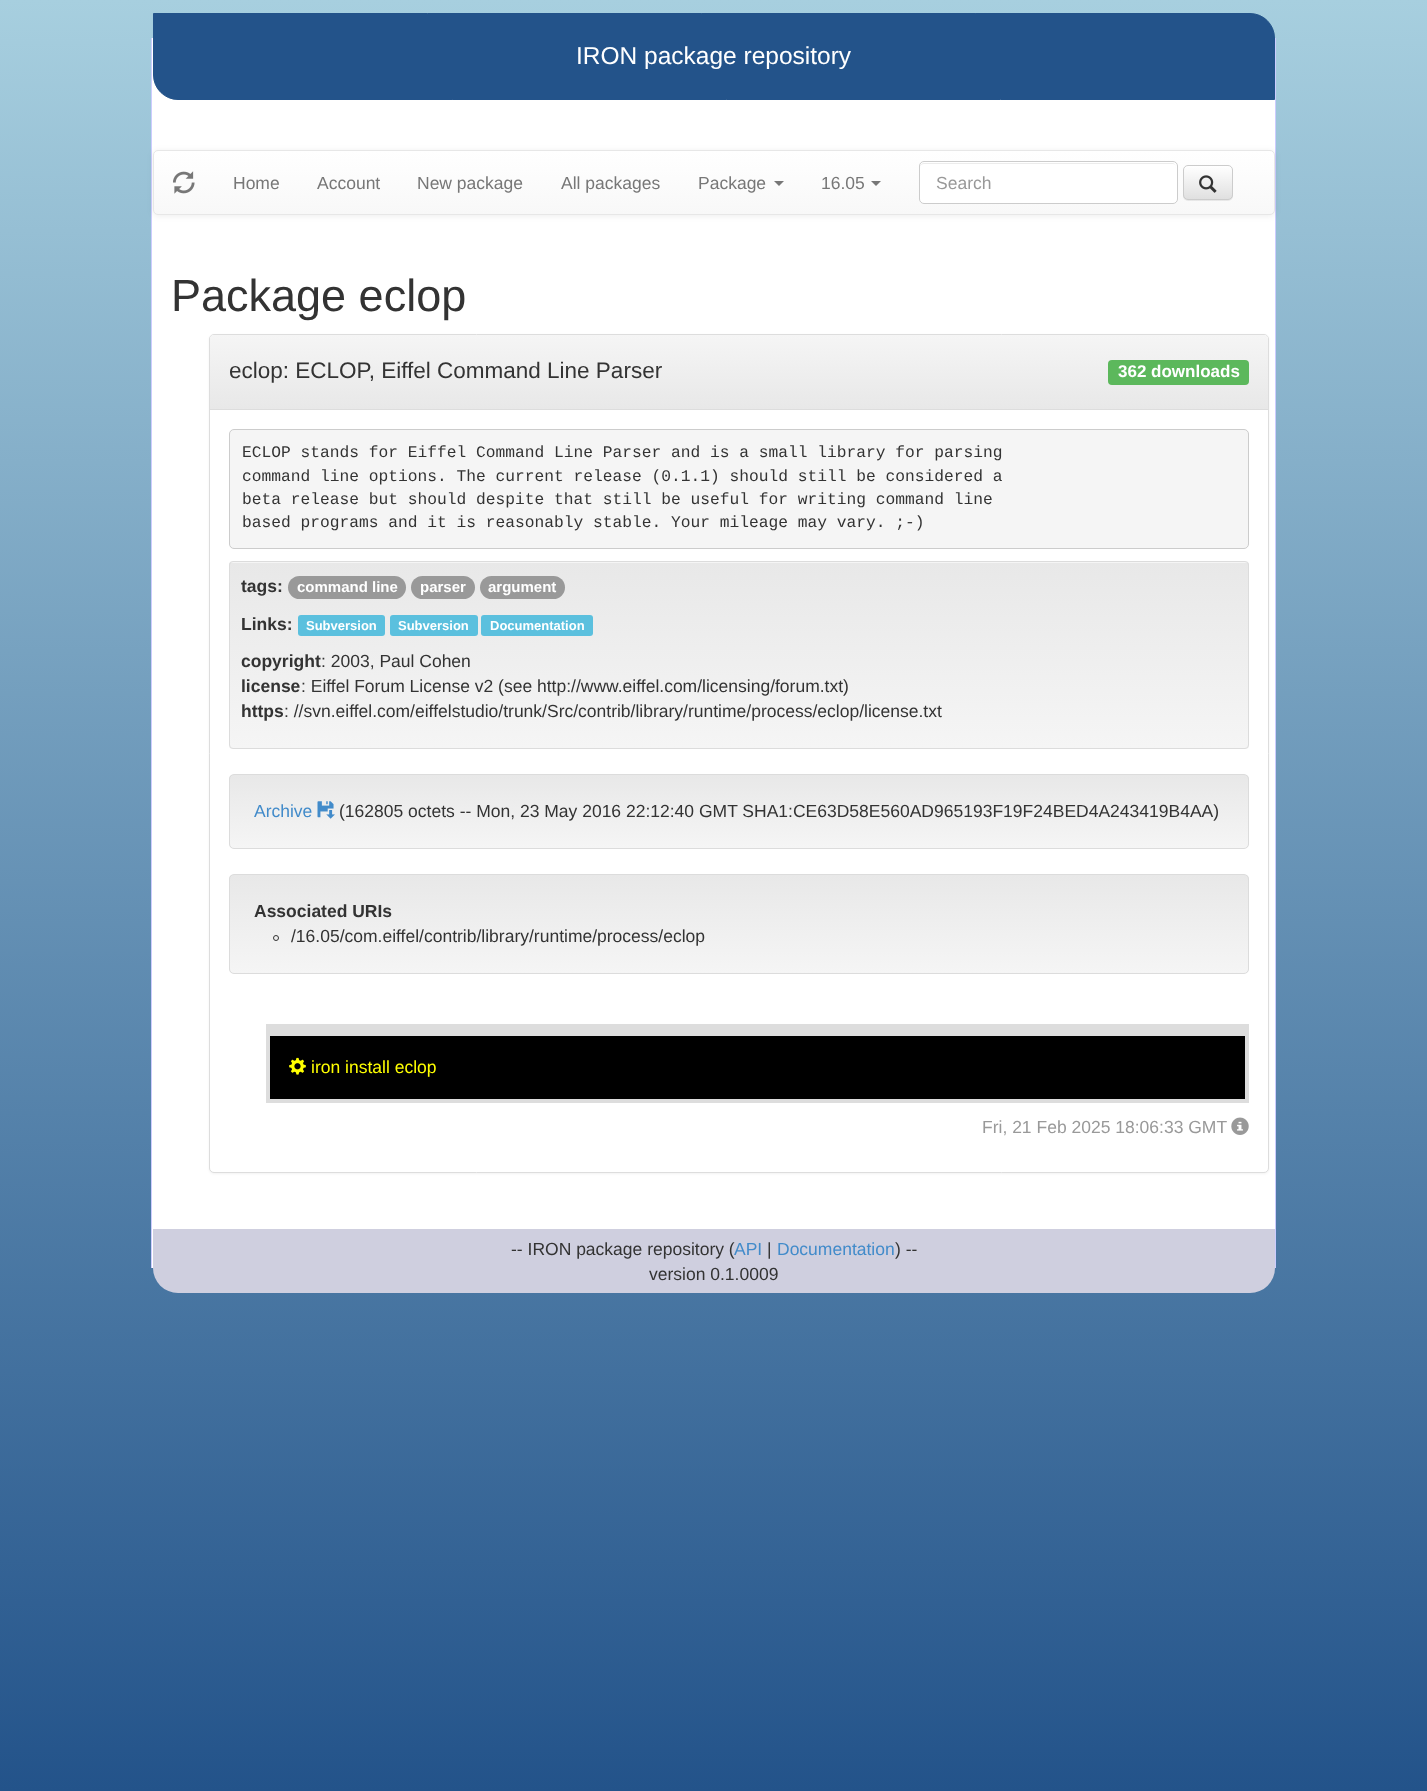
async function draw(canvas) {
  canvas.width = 1427
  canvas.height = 1791
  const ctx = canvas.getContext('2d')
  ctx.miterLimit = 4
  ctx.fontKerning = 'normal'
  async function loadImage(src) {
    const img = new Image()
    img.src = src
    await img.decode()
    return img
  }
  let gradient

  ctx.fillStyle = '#fff'
  ctx.fillRect(0, 0, 1427, 1791)
  gradient = ctx.createLinearGradient(714, 0, 714, 1791)
  gradient.addColorStop(0, '#a7cfdf')
  gradient.addColorStop(1, '#23538a')
  ctx.fillStyle = gradient
  ctx.fillRect(0, 0, 1427, 1791)
  ctx.fillStyle = '#fff'
  ctx.fillRect(152, 38, 1123, 1230)
  ctx.fillStyle = '#ccf'
  ctx.fillRect(1275, 38, 1, 1230)
  ctx.fillRect(151, 38, 1, 1230)
  ctx.fillStyle = '#23538a'
  ctx.beginPath()
  ctx.roundRect(153.5, 13.5, 1121, 86, [0, 24.5, 0, 24.5])
  ctx.fill()
  ctx.strokeStyle = '#23538a'
  ctx.stroke()
  ctx.font = '24.5px Liberation Sans'
  ctx.fillStyle = '#fff'
  ctx.fillText('IRON package repository', 576, 64)
  ctx.fillStyle = '#00000012'
  ctx.filter = 'blur(3px)'
  ctx.beginPath()
  ctx.roundRect(153, 151, 1122, 65, 5)
  ctx.fill()
  ctx.filter = 'none'
  ctx.save()
  ctx.beginPath()
  ctx.roundRect(153, 150, 1122, 65, 5)
  ctx.clip()
  gradient = ctx.createLinearGradient(714, 151, 714, 214)
  gradient.addColorStop(0, '#fff')
  gradient.addColorStop(1, '#f8f8f8')
  ctx.fillStyle = gradient
  ctx.fillRect(153, 151, 1122, 63)
  ctx.restore()
  ctx.beginPath()
  ctx.roundRect(153.5, 150.5, 1121, 64, 4.5)
  ctx.strokeStyle = '#e7e7e7'
  ctx.stroke()
  ctx.drawImage(await loadImage('image0.png'), 173, 171, 22, 23)
  ctx.font = '17.5px Liberation Sans'
  ctx.fillStyle = '#777'
  ctx.fillText('Home', 233, 189)
  ctx.fillText('Account', 317, 189)
  ctx.fillText('New package', 417, 189)
  ctx.fillText('All packages', 561, 189)
  ctx.fillText('Package', 698, 189)
  ctx.beginPath()
  ctx.moveTo(774, 181)
  ctx.lineTo(784, 181)
  ctx.lineTo(779, 186)
  ctx.closePath()
  ctx.fill()
  ctx.fillText('16.05', 821, 189)
  ctx.beginPath()
  ctx.moveTo(871, 181)
  ctx.lineTo(881, 181)
  ctx.lineTo(876, 186)
  ctx.closePath()
  ctx.fill()
  ctx.fillStyle = '#fff'
  ctx.beginPath()
  ctx.roundRect(919, 161, 259, 43, 5)
  ctx.fill()
  ctx.fillStyle = '#ececec'
  ctx.beginPath()
  ctx.moveTo(924, 164)
  ctx.lineTo(1172, 164)
  ctx.bezierCurveTo(1175, 164, 1176, 165, 1176, 168)
  ctx.lineTo(1176, 167)
  ctx.bezierCurveTo(1176, 165, 1174, 163, 1172, 163)
  ctx.lineTo(924, 163)
  ctx.bezierCurveTo(922, 163, 920, 165, 920, 167)
  ctx.lineTo(920, 168)
  ctx.bezierCurveTo(920, 165, 922, 164, 924, 164)
  ctx.closePath()
  ctx.fill()
  ctx.beginPath()
  ctx.roundRect(919.5, 161.5, 258, 42, 4.5)
  ctx.strokeStyle = '#ccc'
  ctx.stroke()
  ctx.fillStyle = '#999'
  ctx.fillText('Search', 936, 189)
  ctx.fillStyle = '#00000012'
  ctx.filter = 'blur(0.5px)'
  ctx.beginPath()
  ctx.roundRect(1183, 166, 50, 35, 5)
  ctx.fill()
  ctx.filter = 'none'
  ctx.save()
  ctx.beginPath()
  ctx.roundRect(1183, 165, 50, 35, 5)
  ctx.clip()
  gradient = ctx.createLinearGradient(1208, 166, 1208, 199)
  gradient.addColorStop(0, '#fff')
  gradient.addColorStop(1, '#e0e0e0')
  ctx.fillStyle = gradient
  ctx.fillRect(1183, 166, 50, 33)
  ctx.restore()
  ctx.beginPath()
  ctx.roundRect(1183.5, 165.5, 49, 34, 4.5)
  ctx.stroke()
  ctx.drawImage(await loadImage('image1.png'), 1199, 175, 18, 18)
  ctx.font = '45px Liberation Sans'
  ctx.fillStyle = '#333'
  ctx.fillText('Package eclop', 171, 311)
  ctx.fillStyle = '#0000000d'
  ctx.filter = 'blur(1px)'
  ctx.beginPath()
  ctx.roundRect(209, 335, 1060, 839, 5)
  ctx.fill()
  ctx.filter = 'none'
  ctx.fillStyle = '#fff'
  ctx.beginPath()
  ctx.roundRect(209.5, 334.5, 1059, 838, 4.5)
  ctx.fill()
  ctx.strokeStyle = '#ddd'
  ctx.stroke()
  gradient = ctx.createLinearGradient(739, 335, 739, 409)
  gradient.addColorStop(0, '#f5f5f5')
  gradient.addColorStop(1, '#e8e8e8')
  ctx.fillStyle = gradient
  ctx.beginPath()
  ctx.roundRect(210, 335, 1058, 74, [4, 4, 0, 0])
  ctx.fill()
  ctx.fillStyle = '#ddd'
  ctx.fillRect(210, 409, 1058, 1)
  ctx.font = '22.5px Liberation Sans'
  ctx.fillStyle = '#333'
  ctx.fillText('eclop: ECLOP, Eiffel Command Line Parser', 229, 378)
  ctx.fillStyle = '#5cb85c'
  ctx.beginPath()
  ctx.roundRect(1108, 360, 141, 25, 4)
  ctx.fill()
  ctx.font = 'bold 17px Liberation Sans'
  ctx.fillStyle = '#fff'
  ctx.fillText('362 downloads', 1118, 377)
  ctx.fillStyle = '#f5f5f5'
  ctx.beginPath()
  ctx.roundRect(229.5, 429.5, 1019, 119, 4.5)
  ctx.fill()
  ctx.strokeStyle = '#ccc'
  ctx.stroke()
  ctx.font = '16.25px Liberation Mono'
  ctx.fillStyle = '#333'
  ctx.fillText('ECLOP stands for Eiffel Command Line Parser and is a small library for parsing', 242, 457)
  ctx.fillText('command line options. The current release (0.1.1) should still be considered a', 242, 481)
  ctx.fillText('beta release but should despite that still be useful for writing command line', 242, 504)
  ctx.fillText('based programs and it is reasonably stable. Your mileage may vary. ;-)', 242, 527)
  ctx.fillStyle = '#f5f5f5'
  ctx.beginPath()
  ctx.roundRect(229, 561, 1020, 188, 4)
  ctx.fill()
  ctx.save()
  ctx.beginPath()
  ctx.roundRect(229, 561, 1020, 188, 4)
  ctx.clip()
  gradient = ctx.createLinearGradient(739, 562, 739, 748)
  gradient.addColorStop(0, '#e8e8e8')
  gradient.addColorStop(1, '#f5f5f5')
  ctx.fillStyle = gradient
  ctx.fillRect(229, 563, 1020, 185)
  ctx.restore()
  ctx.beginPath()
  ctx.roundRect(229.5, 561.5, 1019, 187, 3.5)
  ctx.strokeStyle = '#dcdcdc'
  ctx.stroke()
  ctx.font = 'bold 17.5px Liberation Sans'
  ctx.fillStyle = '#333'
  ctx.fillText('tags:', 241, 592)
  ctx.fillStyle = '#999'
  ctx.beginPath()
  ctx.roundRect(288, 576, 118, 23, 11.5)
  ctx.fill()
  ctx.font = 'bold 15px Liberation Sans'
  ctx.fillStyle = '#fff'
  ctx.fillText('command line', 297, 592)
  ctx.fillStyle = '#999'
  ctx.beginPath()
  ctx.roundRect(411, 576, 64, 23, 11.5)
  ctx.fill()
  ctx.fillStyle = '#fff'
  ctx.fillText('parser', 420, 592)
  ctx.fillStyle = '#999'
  ctx.beginPath()
  ctx.roundRect(480, 576, 85, 23, 11.5)
  ctx.fill()
  ctx.fillStyle = '#fff'
  ctx.fillText('argument', 488, 592)
  ctx.font = 'bold 17.5px Liberation Sans'
  ctx.fillStyle = '#333'
  ctx.fillText('Links:', 241, 630)
  ctx.fillStyle = '#5bc0de'
  ctx.beginPath()
  ctx.roundRect(298, 615, 87, 21, 3)
  ctx.fill()
  ctx.font = 'bold 13px Liberation Sans'
  ctx.fillStyle = '#fff'
  ctx.fillText('Subversion', 306, 630)
  ctx.fillStyle = '#5bc0de'
  ctx.beginPath()
  ctx.roundRect(390, 615, 88, 21, 3)
  ctx.fill()
  ctx.fillStyle = '#fff'
  ctx.fillText('Subversion', 398, 630)
  ctx.fillStyle = '#5bc0de'
  ctx.beginPath()
  ctx.roundRect(481, 615, 112, 21, 3)
  ctx.fill()
  ctx.fillStyle = '#fff'
  ctx.fillText('Documentation', 490, 630)
  ctx.font = 'bold 17.5px Liberation Sans'
  ctx.fillStyle = '#333'
  ctx.fillText('copyright', 241, 667)
  ctx.font = '17.5px Liberation Sans'
  ctx.fillText(': 2003, Paul Cohen', 321, 667)
  ctx.font = 'bold 17.5px Liberation Sans'
  ctx.fillText('license', 241, 692)
  ctx.font = '17.5px Liberation Sans'
  ctx.fillText(': Eiffel Forum License v2 (see http://www.eiffel.com/licensing/forum.txt)', 301, 692)
  ctx.font = 'bold 17.5px Liberation Sans'
  ctx.fillText('https', 241, 717)
  ctx.font = '17.5px Liberation Sans'
  ctx.fillText(': //svn.eiffel.com/eiffelstudio/trunk/Src/contrib/library/runtime/process/eclop/license.txt', 284, 717)
  ctx.save()
  ctx.beginPath()
  ctx.roundRect(229, 774, 1020, 75, 5)
  ctx.clip()
  gradient = ctx.createLinearGradient(739, 775, 739, 848)
  gradient.addColorStop(0, '#e8e8e8')
  gradient.addColorStop(1, '#f5f5f5')
  ctx.fillStyle = gradient
  ctx.fillRect(229, 775, 1020, 73)
  ctx.restore()
  ctx.beginPath()
  ctx.roundRect(229.5, 774.5, 1019, 74, 4.5)
  ctx.stroke()
  ctx.fillStyle = '#428bca'
  ctx.fillText('Archive', 254, 817)
  ctx.drawImage(await loadImage('image2.png'), 317, 801, 18, 18)
  ctx.fillStyle = '#333'
  ctx.fillText('(162805 octets -- Mon, 23 May 2016 22:12:40 GMT SHA1:CE63D58E560AD965193F19F24BED4A243419B4AA)', 339, 817)
  ctx.save()
  ctx.beginPath()
  ctx.roundRect(229, 874, 1020, 100, 5)
  ctx.clip()
  gradient = ctx.createLinearGradient(739, 875, 739, 973)
  gradient.addColorStop(0, '#e8e8e8')
  gradient.addColorStop(1, '#f5f5f5')
  ctx.fillStyle = gradient
  ctx.fillRect(229, 875, 1020, 98)
  ctx.restore()
  ctx.beginPath()
  ctx.roundRect(229.5, 874.5, 1019, 99, 4.5)
  ctx.stroke()
  ctx.font = 'bold 17.5px Liberation Sans'
  ctx.fillText('Associated URIs', 254, 917)
  ctx.beginPath()
  ctx.arc(276, 938, 2.5, 0, 2 * Math.PI)
  ctx.strokeStyle = '#333'
  ctx.stroke()
  ctx.font = '17.5px Liberation Sans'
  ctx.fillText('/16.05/com.eiffel/contrib/library/runtime/process/eclop', 291, 942)
  ctx.fillStyle = '#000'
  ctx.fillRect(270, 1036, 975, 63)
  ctx.fillStyle = '#ddd'
  ctx.fillRect(270, 1024, 975, 12)
  ctx.fillRect(1245, 1024, 4, 79)
  ctx.fillRect(266, 1099, 983, 4)
  ctx.fillRect(266, 1024, 4, 79)
  ctx.drawImage(await loadImage('image3.png'), 289, 1057, 17, 18)
  ctx.fillStyle = '#ff0'
  ctx.fillText('iron install eclop', 311, 1073)
  ctx.fillStyle = '#999'
  ctx.fillText('Fri, 21 Feb 2025 18:06:33 GMT', 982, 1133)
  ctx.drawImage(await loadImage('image4.png'), 1231, 1117, 18, 18)
  ctx.fillStyle = '#cfcfdf'
  ctx.beginPath()
  ctx.roundRect(153, 1229, 1122, 64, [0, 0, 25, 25])
  ctx.fill()
  ctx.fillStyle = '#333'
  ctx.fillText('-- IRON package repository (', 511, 1255)
  ctx.fillStyle = '#428bca'
  ctx.fillText('API', 734, 1255)
  ctx.fillStyle = '#333'
  ctx.fillText('|', 767, 1255)
  ctx.fillStyle = '#428bca'
  ctx.fillText('Documentation', 777, 1255)
  ctx.fillStyle = '#333'
  ctx.fillText(') --', 895, 1255)
  ctx.fillText('version 0.1.0009', 649, 1280)
}

draw(document.querySelector('canvas'))
